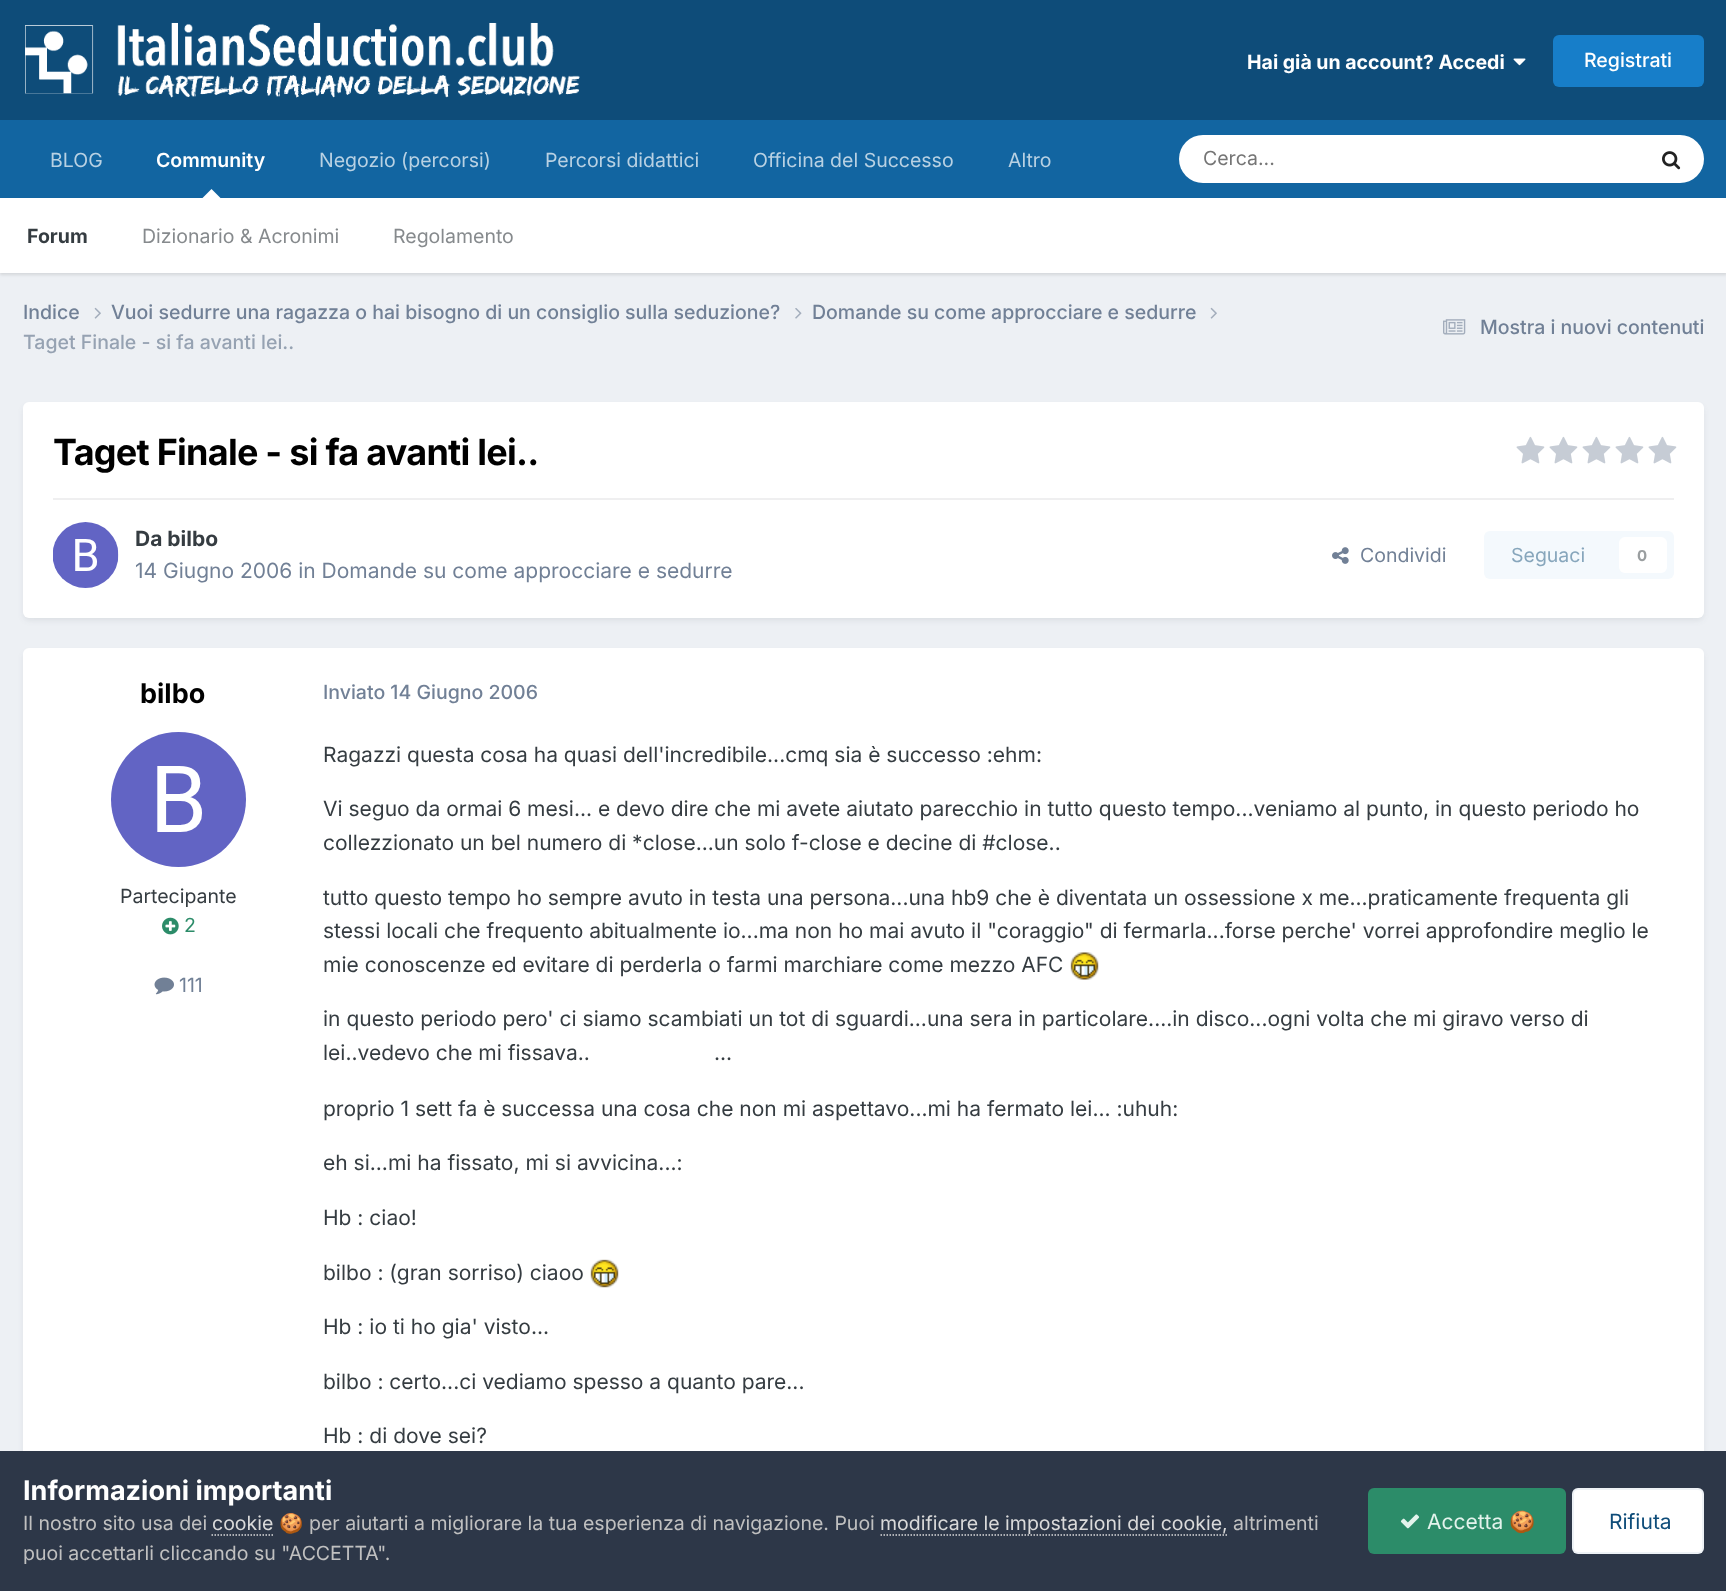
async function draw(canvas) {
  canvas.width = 1726
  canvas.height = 1591
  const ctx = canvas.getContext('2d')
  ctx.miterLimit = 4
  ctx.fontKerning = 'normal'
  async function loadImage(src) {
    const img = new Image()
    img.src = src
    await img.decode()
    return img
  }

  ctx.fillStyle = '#edf0f4'
  ctx.fillRect(0, 0, 1726, 1591)
  ctx.fillStyle = '#0e4c79'
  ctx.fillRect(0, 0, 1726, 120)
  ctx.drawImage(await loadImage('image0.png'), 25, 22, 555, 76)
  ctx.font = 'bold 19.5px Inter'
  ctx.fillStyle = '#fff'
  ctx.fillText('Hai già un account? Accedi', 1247, 69)
  ctx.drawImage(await loadImage('image1.png'), 1513, 58, 13, 8)
  ctx.fillStyle = '#177ec9'
  ctx.beginPath()
  ctx.roundRect(1553, 35, 151, 52, 6)
  ctx.fill()
  ctx.font = '500 19.5px Inter'
  ctx.fillStyle = '#fff'
  ctx.fillText('Registrati', 1584, 67)
  ctx.fillStyle = '#1265a1'
  ctx.fillRect(0, 120, 1726, 78)
  ctx.font = '19.5px Inter'
  ctx.fillStyle = '#b8d1e3'
  ctx.fillText('Negozio (percorsi)', 319, 167)
  ctx.font = '600 19.5px Inter'
  ctx.fillStyle = '#fff'
  ctx.fillText('Community', 156, 167)
  ctx.fillStyle = '#0000001a'
  ctx.filter = 'blur(1.5px)'
  ctx.beginPath()
  ctx.rect(0, 200, 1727, 75)
  ctx.fill()
  ctx.filter = 'none'
  ctx.fillStyle = '#fff'
  ctx.beginPath()
  ctx.moveTo(220.5, 198)
  ctx.lineTo(202.5, 198)
  ctx.lineTo(211.5, 189)
  ctx.closePath()
  ctx.fill()
  ctx.fillRect(0, 198, 1726, 75)
  ctx.font = 'bold 19.5px Inter'
  ctx.fillStyle = '#353c41'
  ctx.fillText('Forum', 27, 243)
  ctx.font = '19.5px Inter'
  ctx.fillStyle = '#868a8d'
  ctx.fillText('Dizionario & Acronimi', 142, 243)
  ctx.fillText('Regolamento', 393, 243)
  ctx.fillStyle = '#b8d1e3'
  ctx.fillText('BLOG', 50, 167)
  ctx.fillText('Percorsi didattici', 545, 167)
  ctx.fillText('Officina del Successo', 753, 167)
  ctx.fillText('Altro', 1008, 167)
  ctx.fillStyle = '#fff'
  ctx.beginPath()
  ctx.roundRect(1179, 135, 525, 48, 24)
  ctx.fill()
  ctx.fillStyle = '#757575'
  ctx.fillText('Cerca...', 1203, 165)
  ctx.drawImage(await loadImage('image2.png'), 1662, 151, 19, 19)
  ctx.font = '500 19.5px Inter'
  ctx.fillStyle = '#718096'
  ctx.fillText('Indice', 23, 319)
  ctx.drawImage(await loadImage('image3.png'), 94, 307, 7, 12)
  ctx.fillText('Vuoi sedurre una ragazza o hai bisogno di un consiglio sulla seduzione?', 111, 319)
  ctx.drawImage(await loadImage('image4.png'), 795, 308, 7, 11)
  ctx.fillText('Domande su come approcciare e sedurre', 812, 319)
  ctx.drawImage(await loadImage('image3.png'), 1210, 307, 7, 12)
  ctx.fillStyle = '#96a2b2'
  ctx.fillText('Taget Finale - si fa avanti lei..', 23, 349)
  ctx.drawImage(await loadImage('image5.png'), 1443, 319, 23, 16)
  ctx.fillStyle = '#718096'
  ctx.fillText('Mostra i nuovi contenuti', 1480, 334)
  ctx.fillStyle = '#2d37481a'
  ctx.filter = 'blur(3px)'
  ctx.beginPath()
  ctx.roundRect(24, 407, 1679, 213, 5)
  ctx.fill()
  ctx.filter = 'none'
  ctx.fillStyle = '#fff'
  ctx.beginPath()
  ctx.roundRect(23, 402, 1681, 216, 6)
  ctx.fill()
  ctx.letterSpacing = '-0.75px'
  ctx.font = 'bold 36px Inter'
  ctx.fillStyle = '#000'
  ctx.fillText('Taget Finale - si fa avanti lei..', 53, 465)
  ctx.drawImage(await loadImage('image6.png'), 1516, 436, 29, 28)
  ctx.drawImage(await loadImage('image6.png'), 1549, 436, 29, 28)
  ctx.drawImage(await loadImage('image6.png'), 1582, 436, 29, 28)
  ctx.drawImage(await loadImage('image6.png'), 1615, 436, 29, 28)
  ctx.drawImage(await loadImage('image6.png'), 1648, 436, 29, 28)
  ctx.fillStyle = '#efeff0'
  ctx.fillRect(53, 498, 1621, 2)
  ctx.drawImage(await loadImage('image7.png'), 53, 522, 66, 66)
  ctx.letterSpacing = '0px'
  ctx.font = 'bold 21px Inter'
  ctx.fillStyle = '#353c41'
  ctx.fillText('Da bilbo', 135, 546)
  ctx.font = '21px Inter'
  ctx.fillStyle = '#718096'
  ctx.fillText('14 Giugno 2006 in Domande su come approcciare e sedurre', 135, 578)
  ctx.drawImage(await loadImage('image8.png'), 1332, 547, 17, 17)
  ctx.font = '19.5px Inter'
  ctx.fillText('Condividi', 1360, 562)
  ctx.fillStyle = '#f4f9fd'
  ctx.beginPath()
  ctx.roundRect(1484, 531, 190, 48, 6)
  ctx.fill()
  ctx.fillStyle = '#87a6bc'
  ctx.fillText('Seguaci', 1511, 562)
  ctx.fillStyle = '#fff'
  ctx.beginPath()
  ctx.roundRect(1619, 537, 48, 36, 6)
  ctx.fill()
  ctx.font = 'bold 15px Inter'
  ctx.fillStyle = '#9a9ea0'
  ctx.fillText('0', 1637, 561)
  ctx.fillStyle = '#2d37481a'
  ctx.filter = 'blur(3px)'
  ctx.beginPath()
  ctx.roundRect(24, 653, 1679, 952, 5)
  ctx.fill()
  ctx.filter = 'none'
  ctx.fillStyle = '#fff'
  ctx.beginPath()
  ctx.roundRect(23, 648, 1681, 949, 6)
  ctx.fill()
  ctx.font = 'bold 27px Inter'
  ctx.fillStyle = '#000'
  ctx.fillText('bilbo', 140, 703)
  ctx.drawImage(await loadImage('image9.png'), 111, 732, 135, 135)
  ctx.font = '19.5px Inter'
  ctx.fillStyle = '#353c41'
  ctx.fillText('Partecipante', 120, 903)
  ctx.drawImage(await loadImage('image10.png'), 162, 917, 17, 18)
  ctx.fillStyle = '#2c8c69'
  ctx.fillText('2', 184, 932)
  ctx.drawImage(await loadImage('image11.png'), 154, 977, 20, 18)
  ctx.fillStyle = '#718096'
  ctx.fillText('111', 179, 992)
  ctx.font = '500 19.5px Inter'
  ctx.fillText('Inviato 14 Giugno 2006', 323, 699)
  ctx.font = '21px Inter'
  ctx.fillStyle = '#353c41'
  ctx.fillText('Ragazzi questa cosa ha quasi dell\'incredibile...cmq sia è successo :ehm:', 323, 762)
  ctx.fillText('Vi seguo da ormai 6 mesi... e devo dire che mi avete aiutato parecchio in tutto questo tempo...veniamo al punto, in questo periodo ho', 323, 816)
  ctx.fillText('collezzionato un bel numero di *close...un solo f-close e decine di #close..', 323, 850)
  ctx.fillText('tutto questo tempo ho sempre avuto in testa una persona...una hb9 che è diventata un ossessione x me...praticamente frequenta gli', 323, 905)
  ctx.fillText('stessi locali che frequento abitualmente io...ma non ho mai avuto il "coraggio" di fermarla...forse perche\' vorrei approfondire meglio le', 323, 938)
  ctx.fillText('mie conoscenze ed evitare di perderla o farmi marchiare come mezzo AFC', 323, 972)
  ctx.drawImage(await loadImage('image12.png'), 1070, 952, 29, 28)
  ctx.fillText('in questo periodo pero\' ci siamo scambiati un tot di sguardi...una sera in particolare....in disco...ogni volta che mi giravo verso di', 323, 1026)
  ctx.fillText('lei..vedevo che mi fissava..', 323, 1060)
  ctx.fillText('...', 714, 1060)
  ctx.fillText('proprio 1 sett fa è successa una cosa che non mi aspettavo...mi ha fermato lei... :uhuh:', 323, 1116)
  ctx.fillText('eh si...mi ha fissato, mi si avvicina...:', 323, 1170)
  ctx.fillText('Hb : ciao!', 323, 1225)
  ctx.fillText('bilbo : (gran sorriso) ciaoo', 323, 1280)
  ctx.drawImage(await loadImage('image13.png'), 590, 1259, 29, 29)
  ctx.fillText('Hb : io ti ho gia\' visto...', 323, 1334)
  ctx.fillText('bilbo : certo...ci vediamo spesso a quanto pare...', 323, 1389)
  ctx.fillText('Hb : di dove sei?', 323, 1443)
  ctx.fillStyle = '#2d3748'
  ctx.fillRect(0, 1451, 1726, 140)
  ctx.font = 'bold 27px Inter'
  ctx.fillStyle = '#fff'
  ctx.fillText('Informazioni importanti', 23, 1500)
  ctx.font = '19.5px Inter'
  ctx.fillStyle = '#c0c0c0'
  ctx.fillText('Il nostro sito usa dei', 23, 1530)
  ctx.fillStyle = '#dadada'
  ctx.fillText('cookie', 212, 1530)
  ctx.beginPath()
  ctx.moveTo(211.5, 1535)
  ctx.lineTo(273, 1535)
  ctx.strokeStyle = '#dadada'
  ctx.lineWidth = 1.5
  ctx.setLineDash([1.5, 1.5])
  ctx.stroke()
  ctx.font = '19.5px Noto Color Emoji'
  ctx.fillStyle = '#c0c0c0'
  ctx.fillText('🍪', 279, 1530)
  ctx.font = '19.5px Inter'
  ctx.fillText('per aiutarti a migliorare la tua esperienza di navigazione. Puoi', 309, 1530)
  ctx.fillStyle = '#dadada'
  ctx.fillText('modificare le impostazioni dei cookie,', 880, 1530)
  ctx.beginPath()
  ctx.moveTo(880.5, 1535)
  ctx.lineTo(1227, 1535)
  ctx.stroke()
  ctx.fillStyle = '#c0c0c0'
  ctx.fillText('altrimenti', 1233, 1530)
  ctx.fillText('puoi accettarli cliccando su "ACCETTA".', 23, 1560)
  ctx.fillStyle = '#2c8c69'
  ctx.beginPath()
  ctx.roundRect(1368, 1488, 198, 66, 6)
  ctx.fill()
  ctx.drawImage(await loadImage('image14.png'), 1400, 1514, 20, 15)
  ctx.font = '21px Inter'
  ctx.fillStyle = '#e3f3ec'
  ctx.fillText('Accetta', 1427, 1529)
  ctx.font = '21px Noto Color Emoji'
  ctx.fillText('🍪', 1509, 1529)
  ctx.fillStyle = '#fff'
  ctx.beginPath()
  ctx.roundRect(1572, 1488, 132, 66, 6)
  ctx.fill()
  ctx.beginPath()
  ctx.roundRect(1573, 1489, 130, 64, 5)
  ctx.strokeStyle = '#0e4c7912'
  ctx.lineWidth = 2
  ctx.setLineDash([])
  ctx.stroke()
  ctx.font = '21px Inter'
  ctx.fillStyle = '#0e4c79'
  ctx.fillText('Rifiuta', 1609, 1529)
}

draw(document.querySelector('canvas'))
